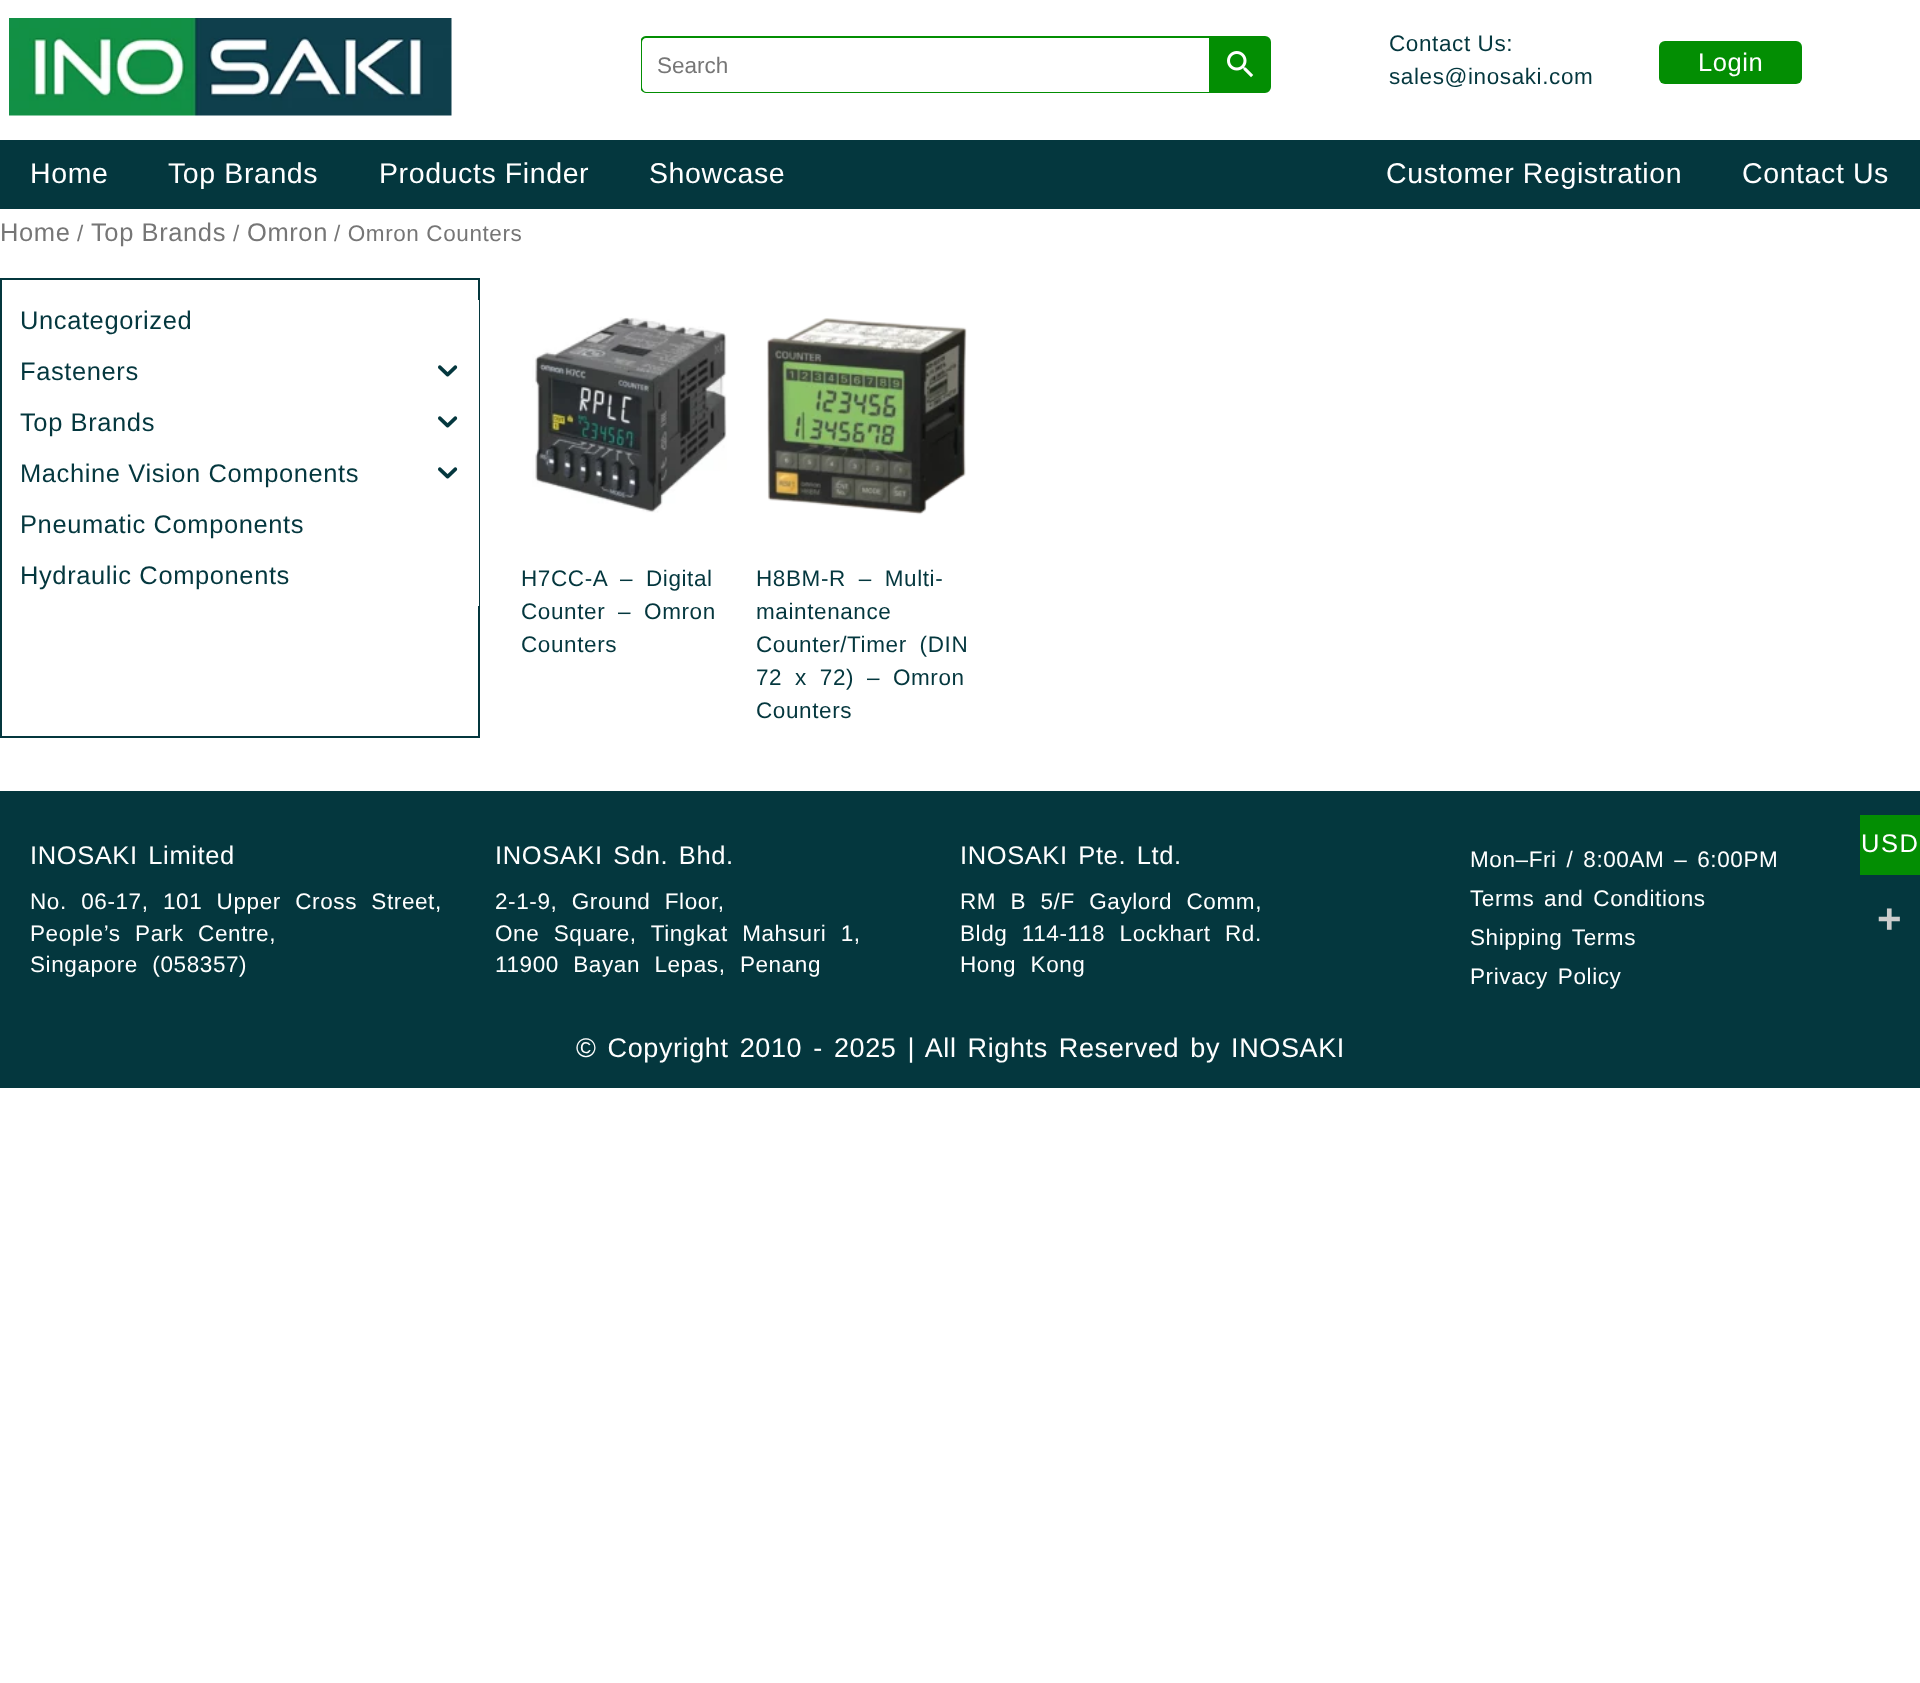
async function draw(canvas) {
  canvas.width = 1920
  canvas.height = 1683
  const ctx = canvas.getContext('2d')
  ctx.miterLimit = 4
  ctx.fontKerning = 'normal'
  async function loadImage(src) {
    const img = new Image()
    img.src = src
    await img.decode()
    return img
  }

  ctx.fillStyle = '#fff'
  ctx.fillRect(0, 0, 1920, 1683)
  ctx.drawImage(await loadImage('image0.png'), 9, 18, 443, 98)
  ctx.fillStyle = '#038e03'
  ctx.beginPath()
  ctx.roundRect(1209, 37, 61, 55, [0, 5, 5, 0])
  ctx.fill()
  ctx.strokeStyle = '#038e03'
  ctx.lineWidth = 2
  ctx.stroke()
  ctx.fillStyle = '#fff'
  ctx.beginPath()
  ctx.roundRect(641, 36, 568, 57, [6, 0, 0, 6])
  ctx.fill()
  ctx.save()
  ctx.beginPath()
  ctx.rect(641, 36, 568, 57)
  ctx.clip()
  ctx.fillStyle = '#038e03'
  ctx.beginPath()
  ctx.moveTo(646, 36)
  ctx.lineTo(1209, 36)
  ctx.lineTo(1209, 93)
  ctx.lineTo(646, 93)
  ctx.bezierCurveTo(643, 93, 640, 90, 640, 87)
  ctx.lineTo(640, 42)
  ctx.bezierCurveTo(640, 39, 643, 36, 646, 36)
  ctx.closePath()
  ctx.moveTo(646, 38)
  ctx.lineTo(1209, 38)
  ctx.lineTo(1209, 92)
  ctx.lineTo(646, 92)
  ctx.bezierCurveTo(644, 92, 642, 89, 642, 87)
  ctx.lineTo(642, 42)
  ctx.bezierCurveTo(642, 40, 644, 38, 646, 38)
  ctx.closePath()
  ctx.fill('evenodd')
  ctx.restore()
  ctx.font = '22.5px Liberation Sans'
  ctx.fillStyle = '#767676'
  ctx.fillText('Search', 657, 73)
  ctx.drawImage(await loadImage('image1.png'), 1227, 51, 27, 27)
  ctx.letterSpacing = '0.6px'
  ctx.fillStyle = '#04373e'
  ctx.fillText('Contact Us:', 1389, 51)
  ctx.fillText('sales@inosaki.com', 1389, 84)
  ctx.fillStyle = '#038e03'
  ctx.beginPath()
  ctx.roundRect(1659, 41, 143, 43, 6)
  ctx.fill()
  ctx.font = '25.5px Liberation Sans'
  ctx.fillStyle = '#fff'
  ctx.fillText('Login', 1698, 71)
  ctx.fillStyle = '#04373e'
  ctx.fillRect(0, 140, 1920, 69)
  ctx.font = '28.5px Liberation Sans'
  ctx.fillStyle = '#fff'
  ctx.fillText('Home', 30, 183)
  ctx.fillText('Top Brands', 168, 183)
  ctx.fillText('Products Finder', 379, 183)
  ctx.fillText('Showcase', 649, 183)
  ctx.fillText('Customer Registration', 1386, 183)
  ctx.fillText('Contact Us', 1742, 183)
  ctx.font = '25.5px Liberation Sans'
  ctx.fillStyle = '#767676'
  ctx.fillText('Home', 0, 241)
  ctx.font = '22.5px Liberation Sans'
  ctx.fillText('/', 77, 241)
  ctx.font = '25.5px Liberation Sans'
  ctx.fillText('Top Brands', 91, 241)
  ctx.font = '22.5px Liberation Sans'
  ctx.fillText('/', 233, 241)
  ctx.font = '25.5px Liberation Sans'
  ctx.fillText('Omron', 247, 241)
  ctx.font = '22.5px Liberation Sans'
  ctx.fillText('/ Omron Counters', 334, 241)
  ctx.strokeStyle = '#04373e'
  ctx.strokeRect(1, 279, 478, 458)
  ctx.fillStyle = '#fff'
  ctx.fillRect(478, 300, 1, 306)
  ctx.font = '25.5px Liberation Sans'
  ctx.fillStyle = '#04373e'
  ctx.fillText('Uncategorized', 20, 329)
  ctx.fillText('Fasteners', 20, 380)
  ctx.drawImage(await loadImage('image2.png'), 438, 365, 20, 12)
  ctx.fillText('Top Brands', 20, 431)
  ctx.drawImage(await loadImage('image2.png'), 438, 416, 20, 12)
  ctx.fillText('Machine Vision Components', 20, 482)
  ctx.drawImage(await loadImage('image2.png'), 438, 467, 20, 12)
  ctx.fillText('Pneumatic Components', 20, 533)
  ctx.fillText('Hydraulic Components', 20, 584)
  ctx.drawImage(await loadImage('image3.png'), 532, 317, 195, 196)
  ctx.wordSpacing = '6px'
  ctx.font = '22.5px Liberation Sans'
  ctx.fillText('H7CC-A – Digital', 521, 586)
  ctx.fillText('Counter – Omron', 521, 619)
  ctx.wordSpacing = '0px'
  ctx.fillText('Counters', 521, 652)
  ctx.drawImage(await loadImage('image4.png'), 767, 318, 200, 197)
  ctx.wordSpacing = '6px'
  ctx.fillText('H8BM-R – Multi-', 756, 586)
  ctx.wordSpacing = '0px'
  ctx.fillText('maintenance', 756, 619)
  ctx.wordSpacing = '6px'
  ctx.fillText('Counter/Timer (DIN', 756, 652)
  ctx.fillText('72 x 72) – Omron', 756, 685)
  ctx.wordSpacing = '0px'
  ctx.fillText('Counters', 756, 718)
  ctx.fillRect(0, 791, 1920, 297)
  ctx.wordSpacing = '3px'
  ctx.font = '25.5px Liberation Sans'
  ctx.fillStyle = '#fff'
  ctx.fillText('INOSAKI Limited', 30, 864)
  ctx.wordSpacing = '7.5px'
  ctx.font = '22.5px Liberation Sans'
  ctx.fillText('No. 06-17, 101 Upper Cross Street,', 30, 909)
  ctx.fillText('People’s Park Centre,', 30, 941)
  ctx.fillText('Singapore (058357)', 30, 972)
  ctx.wordSpacing = '3px'
  ctx.font = '25.5px Liberation Sans'
  ctx.fillText('INOSAKI Sdn. Bhd.', 495, 864)
  ctx.wordSpacing = '7.5px'
  ctx.font = '22.5px Liberation Sans'
  ctx.fillText('2-1-9, Ground Floor,', 495, 909)
  ctx.fillText('One Square, Tingkat Mahsuri 1,', 495, 941)
  ctx.fillText('11900 Bayan Lepas, Penang', 495, 972)
  ctx.wordSpacing = '3px'
  ctx.font = '25.5px Liberation Sans'
  ctx.fillText('INOSAKI Pte. Ltd.', 960, 864)
  ctx.wordSpacing = '7.5px'
  ctx.font = '22.5px Liberation Sans'
  ctx.fillText('RM B 5/F Gaylord Comm,', 960, 909)
  ctx.fillText('Bldg 114-118 Lockhart Rd.', 960, 941)
  ctx.fillText('Hong Kong', 960, 972)
  ctx.wordSpacing = '3px'
  ctx.fillText('Mon–Fri / 8:00AM – 6:00PM', 1470, 867)
  ctx.fillText('Terms and Conditions', 1470, 906)
  ctx.fillText('Shipping Terms', 1470, 945)
  ctx.fillText('Privacy Policy', 1470, 984)
  ctx.font = '27px Liberation Sans'
  ctx.fillText('© Copyright 2010 - 2025 | All Rights Reserved by INOSAKI', 576, 1057)
  ctx.fillStyle = '#038e03'
  ctx.fillRect(1860, 815, 60, 60)
  ctx.letterSpacing = '1.5px'
  ctx.wordSpacing = '0px'
  ctx.font = '25.5px Liberation Sans'
  ctx.fillStyle = '#fff'
  ctx.fillText('USD', 1861, 852)
  ctx.letterSpacing = '0.6px'
  ctx.font = 'bold 42px Liberation Sans'
  ctx.fillStyle = '#ccc'
  ctx.fillText('+', 1877, 933)
}

draw(document.querySelector('canvas'))
